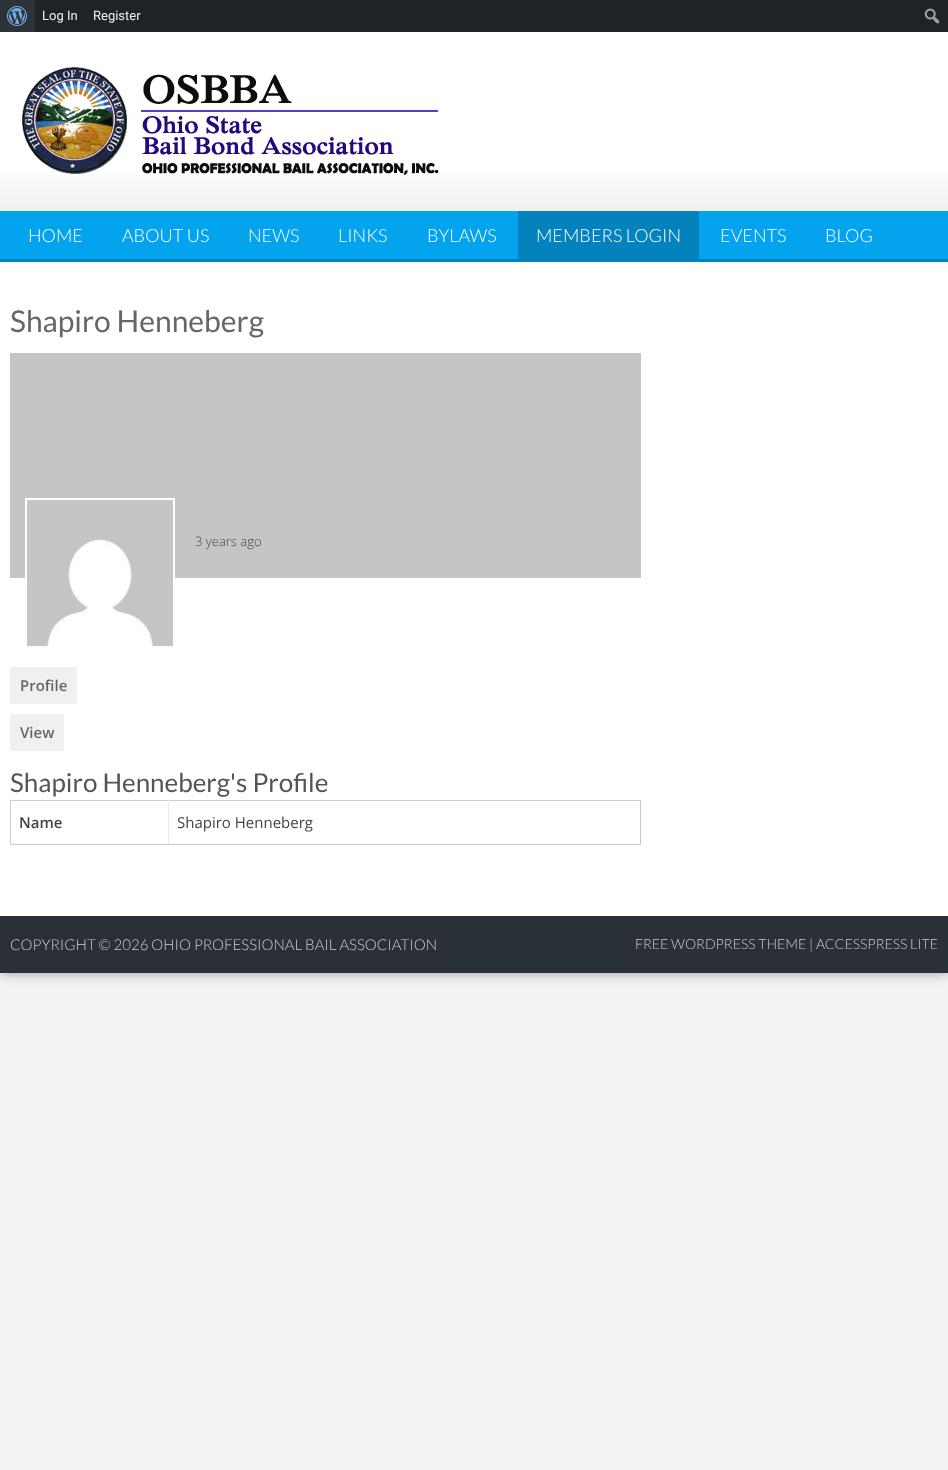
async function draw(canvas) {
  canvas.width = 948
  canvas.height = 1470
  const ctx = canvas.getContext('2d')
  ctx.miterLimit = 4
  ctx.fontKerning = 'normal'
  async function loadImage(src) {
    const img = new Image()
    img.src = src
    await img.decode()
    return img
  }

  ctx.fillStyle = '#f2f3f4'
  ctx.fillRect(0, 0, 948, 1470)
  ctx.fillStyle = '#999'
  ctx.filter = 'blur(6px)'
  ctx.beginPath()
  ctx.rect(0, 32, 948, 941)
  ctx.fill()
  ctx.filter = 'none'
  ctx.fillStyle = '#1d2327'
  ctx.fillRect(35, 0, 913, 32)
  ctx.fillStyle = '#2c3338'
  ctx.fillRect(0, 0, 35, 32)
  ctx.drawImage(await loadImage('image0.png'), 7, 6, 20, 20)
  ctx.font = '13px Roboto'
  ctx.fillStyle = '#f0f0f1'
  ctx.fillText('Log In', 42, 20)
  ctx.fillText('Register', 93, 20)
  ctx.drawImage(await loadImage('image1.png'), 924, 8, 16, 16)
  ctx.fillStyle = '#fff'
  ctx.fillRect(0, 32, 948, 884)
  ctx.drawImage(await loadImage('image2.png'), 0, 175, 948, 36)
  ctx.drawImage(await loadImage('image3.png'), 22, 67, 417, 108)
  ctx.fillStyle = '#04a3ed'
  ctx.fillRect(0, 211, 948, 48)
  ctx.fillStyle = '#0382be'
  ctx.fillRect(0, 259, 948, 3)
  ctx.font = '300 18px Lato'
  ctx.fillStyle = '#fff'
  ctx.fillText('HOME', 28, 242)
  ctx.fillText('ABOUT US', 122, 242)
  ctx.fillText('NEWS', 248, 242)
  ctx.fillText('LINKS', 338, 242)
  ctx.fillText('BYLAWS', 427, 242)
  ctx.fillStyle = '#0382be'
  ctx.fillRect(518, 211, 181, 48)
  ctx.fillStyle = '#fff'
  ctx.fillText('MEMBERS LOGIN', 536, 242)
  ctx.fillText('EVENTS', 720, 242)
  ctx.fillText('BLOG', 825, 242)
  ctx.font = '30px Lato'
  ctx.fillStyle = '#666'
  ctx.fillText('Shapiro Henneberg', 10, 332)
  ctx.fillStyle = '#c5c5c5'
  ctx.fillRect(10, 353, 631, 225)
  ctx.strokeStyle = '#fff'
  ctx.lineWidth = 2
  ctx.strokeRect(26, 499, 148, 148)
  ctx.drawImage(await loadImage('image4.png'), 27, 500, 146, 146)
  ctx.font = '300 13px Open Sans'
  ctx.fillStyle = '#444'
  ctx.fillText('3 years ago', 195, 546)
  ctx.fillStyle = '#f0f0f0'
  ctx.fillRect(10, 667, 67, 37)
  ctx.font = '600 15px Open Sans'
  ctx.fillStyle = '#666'
  ctx.fillText('Profile', 20, 691)
  ctx.fillStyle = '#f0f0f0'
  ctx.fillRect(10, 714, 54, 37)
  ctx.fillStyle = '#666'
  ctx.fillText('View', 20, 738)
  ctx.font = '26px Lato'
  ctx.fillStyle = '#555'
  ctx.fillText('Shapiro Henneberg\'s Profile', 10, 792)
  ctx.fillStyle = '#ccc'
  ctx.fillRect(10, 800, 631, 1)
  ctx.fillRect(640, 800, 1, 45)
  ctx.fillRect(168, 844, 473, 1)
  ctx.fillStyle = '#eaeaea'
  ctx.fillRect(168, 800, 1, 45)
  ctx.fillStyle = '#ccc'
  ctx.fillRect(10, 844, 159, 1)
  ctx.fillRect(10, 800, 1, 45)
  ctx.font = '600 15px Open Sans'
  ctx.fillStyle = '#444'
  ctx.fillText('Name', 19, 828)
  ctx.font = '15px Open Sans'
  ctx.fillText('Shapiro Henneberg', 177, 828)
  ctx.fillStyle = '#293037'
  ctx.fillRect(0, 916, 948, 57)
  ctx.font = '300 15px Lato'
  ctx.fillStyle = '#ccc'
  ctx.fillText('COPYRIGHT © 2026 OHIO PROFESSIONAL BAIL ASSOCIATION', 10, 950)
  ctx.font = '300 14px Lato'
  ctx.fillText('FREE WORDPRESS THEME | ACCESSPRESS LITE', 635, 949)
}

draw(document.querySelector('canvas'))
